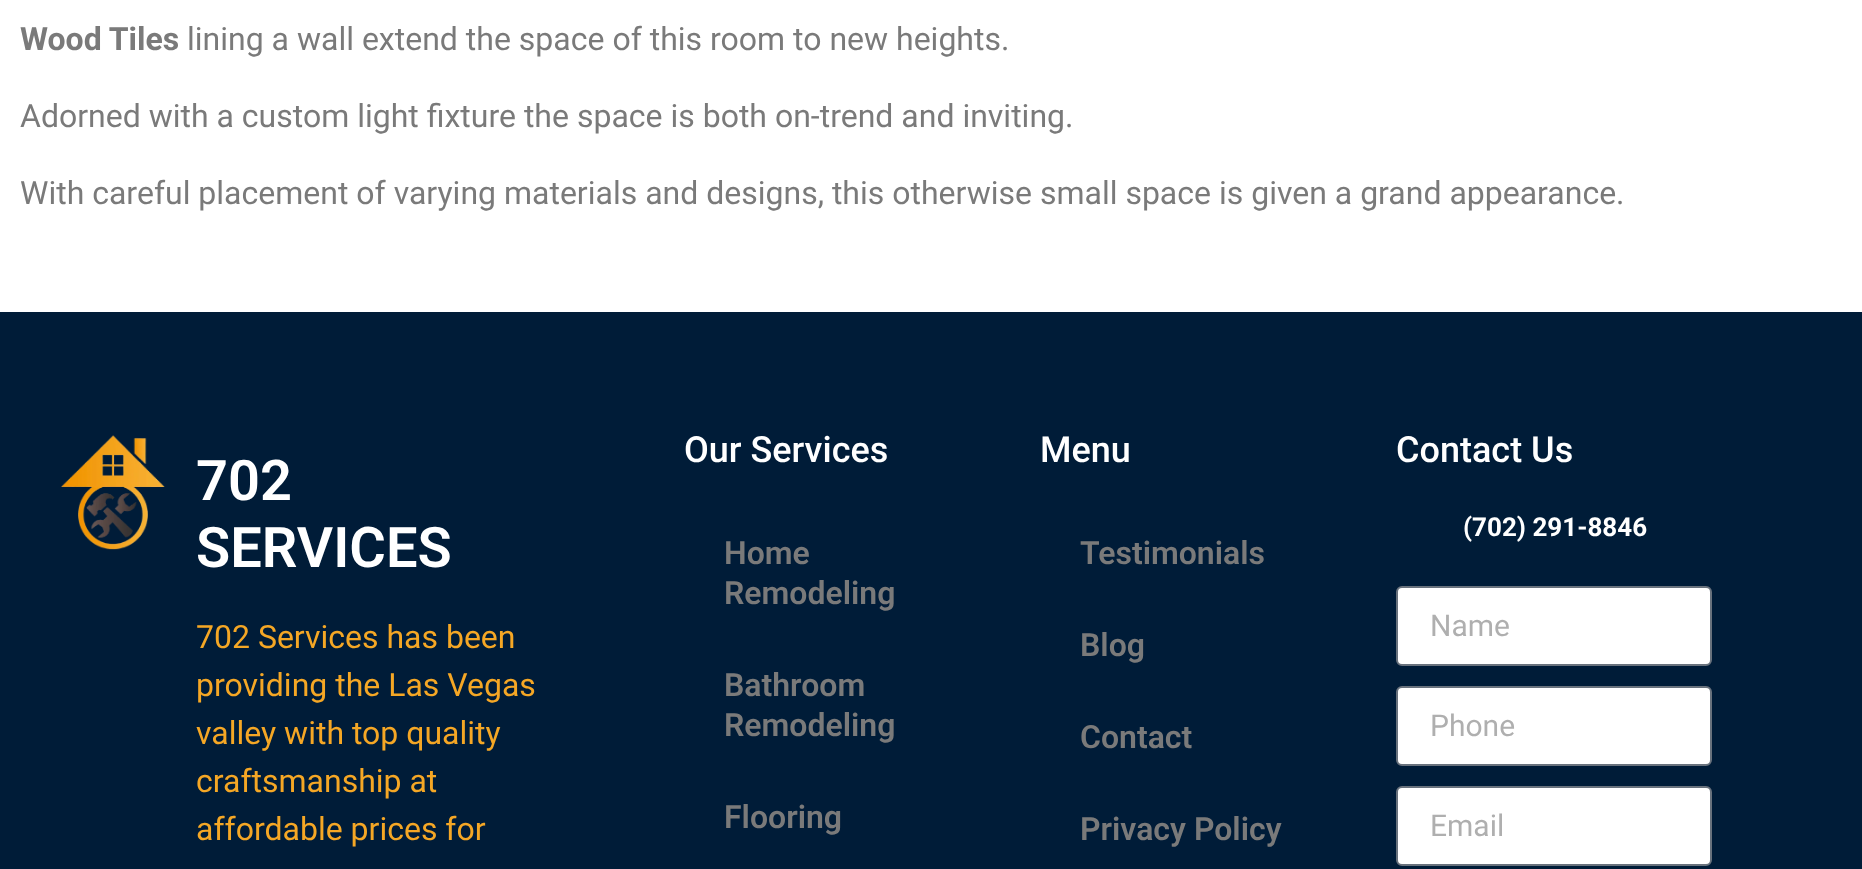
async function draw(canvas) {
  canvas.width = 1862
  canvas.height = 869
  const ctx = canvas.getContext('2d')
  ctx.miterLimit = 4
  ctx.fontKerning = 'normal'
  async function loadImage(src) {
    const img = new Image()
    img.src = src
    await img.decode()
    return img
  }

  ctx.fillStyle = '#fff'
  ctx.fillRect(0, 0, 1862, 869)
  ctx.font = 'bold 32px Roboto'
  ctx.fillStyle = '#7a7a7a'
  ctx.fillText('Wood Tiles', 20, 50)
  ctx.font = '32px Roboto'
  ctx.fillText('lining a wall extend the space of this room to new heights.', 187, 50)
  ctx.fillText('Adorned with a custom light fixture the space is both on-trend and inviting.', 20, 127)
  ctx.fillText('With careful placement of varying materials and designs, this otherwise small space is given a grand appearance.', 20, 204)
  ctx.fillStyle = '#001c38'
  ctx.fillRect(0, 312, 1862, 557)
  ctx.drawImage(await loadImage('image0.png'), 61, 435, 104, 115)
  ctx.font = '600 56px Roboto'
  ctx.fillStyle = '#fff'
  ctx.fillText('702', 196, 500)
  ctx.fillText('SERVICES', 196, 567)
  ctx.font = '32px Roboto'
  ctx.fillStyle = '#f5a725'
  ctx.fillText('702 Services has been', 196, 648)
  ctx.fillText('providing the Las Vegas', 196, 696)
  ctx.fillText('valley with top quality', 196, 744)
  ctx.fillText('craftsmanship at', 196, 792)
  ctx.fillText('affordable prices for', 196, 840)
  ctx.font = '500 36px Roboto'
  ctx.fillStyle = '#fff'
  ctx.fillText('Our Services', 684, 462)
  ctx.font = '600 32px Roboto'
  ctx.fillStyle = '#7a7a7a'
  ctx.fillText('Home', 724, 564)
  ctx.fillText('Remodeling', 724, 604)
  ctx.fillText('Bathroom', 724, 696)
  ctx.fillText('Remodeling', 724, 736)
  ctx.fillText('Flooring', 724, 828)
  ctx.font = '500 36px Roboto'
  ctx.fillStyle = '#fff'
  ctx.fillText('Menu', 1040, 462)
  ctx.font = '600 32px Roboto'
  ctx.fillStyle = '#7a7a7a'
  ctx.fillText('Testimonials', 1080, 564)
  ctx.fillText('Blog', 1080, 656)
  ctx.fillText('Contact', 1080, 748)
  ctx.fillText('Privacy Policy', 1080, 840)
  ctx.font = '500 36px Roboto'
  ctx.fillStyle = '#fff'
  ctx.fillText('Contact Us', 1396, 462)
  ctx.font = 'bold 26px Roboto'
  ctx.fillText('(702) 291-8846', 1463, 536)
  ctx.beginPath()
  ctx.roundRect(1397, 587, 314, 78, 5)
  ctx.fill()
  ctx.strokeStyle = '#69727d'
  ctx.lineWidth = 2
  ctx.stroke()
  ctx.font = '30px Roboto'
  ctx.fillStyle = '#afafaf'
  ctx.fillText('Name', 1430, 636)
  ctx.fillStyle = '#fff'
  ctx.beginPath()
  ctx.roundRect(1397, 687, 314, 78, 5)
  ctx.fill()
  ctx.stroke()
  ctx.fillStyle = '#afafaf'
  ctx.fillText('Phone', 1430, 736)
  ctx.fillStyle = '#fff'
  ctx.beginPath()
  ctx.roundRect(1397, 787, 314, 78, 5)
  ctx.fill()
  ctx.stroke()
  ctx.fillStyle = '#afafaf'
  ctx.fillText('Email', 1430, 836)
}

draw(document.querySelector('canvas'))
